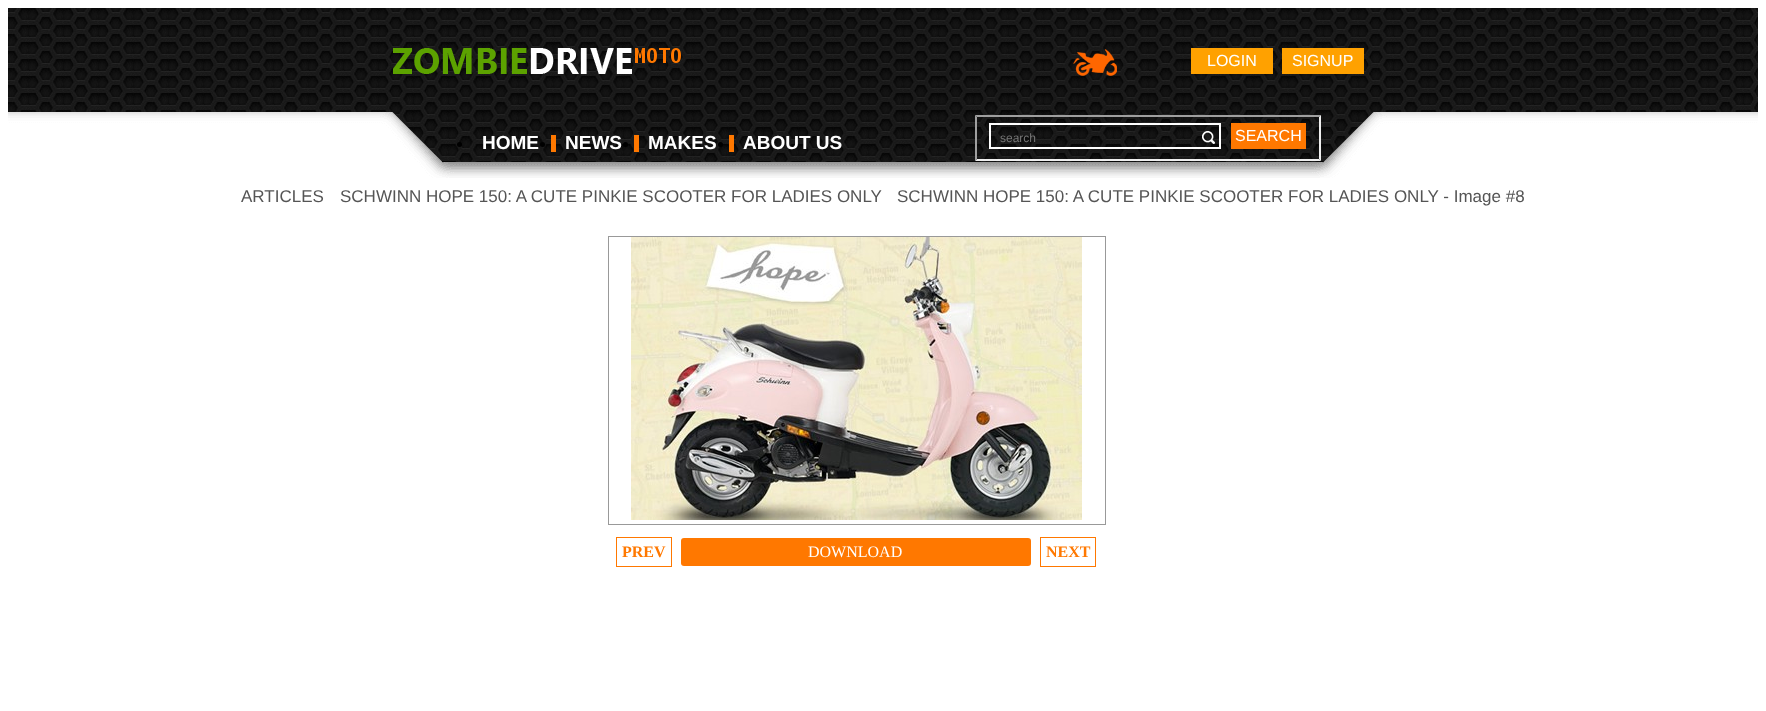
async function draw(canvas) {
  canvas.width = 1766
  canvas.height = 711
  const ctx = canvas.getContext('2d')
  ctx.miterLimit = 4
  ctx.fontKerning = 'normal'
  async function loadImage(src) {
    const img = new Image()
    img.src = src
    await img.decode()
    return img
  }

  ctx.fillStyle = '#fff'
  ctx.fillRect(0, 0, 1766, 711)
  ctx.drawImage(await loadImage('image0.png'), 8, 8, 1750, 170)
  ctx.drawImage(await loadImage('image1.png'), 393, 48, 288, 26)
  ctx.drawImage(await loadImage('image2.png'), 1073, 49, 44, 27)
  ctx.fillStyle = '#ffa100'
  ctx.fillRect(1191, 48, 82, 26)
  ctx.font = '16px Liberation Sans'
  ctx.fillStyle = '#fff'
  ctx.fillText('LOGIN', 1207, 66)
  ctx.fillStyle = '#ffa100'
  ctx.fillRect(1282, 48, 82, 26)
  ctx.fillStyle = '#fff'
  ctx.fillText('SIGNUP', 1292, 66)
  ctx.fillStyle = '#000'
  ctx.beginPath()
  ctx.arc(459.5, 144.5, 2.5, 0, 2 * Math.PI)
  ctx.fill()
  ctx.font = 'bold 19px Liberation Sans'
  ctx.fillStyle = '#fff'
  ctx.fillText('HOME', 482, 149)
  ctx.fillStyle = '#ff7800'
  ctx.fillRect(551, 135, 5, 17)
  ctx.fillStyle = '#000'
  ctx.beginPath()
  ctx.arc(542.5, 144.5, 2.5, 0, 2 * Math.PI)
  ctx.fill()
  ctx.fillStyle = '#fff'
  ctx.fillText('NEWS', 565, 149)
  ctx.fillStyle = '#ff7800'
  ctx.fillRect(634, 135, 5, 17)
  ctx.fillStyle = '#000'
  ctx.beginPath()
  ctx.arc(625.5, 144.5, 2.5, 0, 2 * Math.PI)
  ctx.fill()
  ctx.fillStyle = '#fff'
  ctx.fillText('MAKES', 648, 149)
  ctx.fillStyle = '#ff7800'
  ctx.fillRect(729, 135, 5, 17)
  ctx.fillStyle = '#000'
  ctx.beginPath()
  ctx.arc(720.5, 144.5, 2.5, 0, 2 * Math.PI)
  ctx.fill()
  ctx.fillStyle = '#fff'
  ctx.fillText('ABOUT US', 743, 149)
  ctx.fillStyle = '#9f9f9f'
  ctx.beginPath()
  ctx.moveTo(975, 115)
  ctx.lineTo(1321, 115)
  ctx.lineTo(1319, 117)
  ctx.lineTo(977, 117)
  ctx.closePath()
  ctx.fill()
  ctx.fillStyle = '#efefef'
  ctx.beginPath()
  ctx.moveTo(1321, 115)
  ctx.lineTo(1321, 161)
  ctx.lineTo(1319, 159)
  ctx.lineTo(1319, 117)
  ctx.closePath()
  ctx.fill()
  ctx.beginPath()
  ctx.moveTo(1321, 161)
  ctx.lineTo(975, 161)
  ctx.lineTo(977, 159)
  ctx.lineTo(1319, 159)
  ctx.closePath()
  ctx.fill()
  ctx.fillStyle = '#9f9f9f'
  ctx.beginPath()
  ctx.moveTo(975, 161)
  ctx.lineTo(975, 115)
  ctx.lineTo(977, 117)
  ctx.lineTo(977, 159)
  ctx.closePath()
  ctx.fill()
  ctx.strokeStyle = '#fff'
  ctx.lineWidth = 2
  ctx.strokeRect(990, 124, 230, 24)
  ctx.drawImage(await loadImage('image3.png'), 1202, 131, 13, 13)
  ctx.font = '12px Liberation Sans'
  ctx.fillStyle = '#757575'
  ctx.fillText('search', 1000, 142)
  ctx.fillStyle = '#ff7800'
  ctx.fillRect(1231, 123, 75, 26)
  ctx.font = '16px Liberation Sans'
  ctx.fillStyle = '#fff'
  ctx.fillText('SEARCH', 1235, 141)
  ctx.font = '17px Liberation Sans'
  ctx.fillStyle = '#555'
  ctx.fillText('ARTICLES', 241, 202)
  ctx.fillText('SCHWINN HOPE 150: A CUTE PINKIE SCOOTER FOR LADIES ONLY', 340, 202)
  ctx.fillText('SCHWINN HOPE 150: A CUTE PINKIE SCOOTER FOR LADIES ONLY - Image #8', 897, 202)
  ctx.strokeStyle = '#999'
  ctx.lineWidth = 1
  ctx.strokeRect(608.5, 236.5, 497, 288)
  ctx.drawImage(await loadImage('image4.png'), 631, 237, 451, 283)
  ctx.strokeStyle = '#ff7800'
  ctx.strokeRect(616.5, 537.5, 55, 29)
  ctx.font = 'bold 16px Liberation Serif'
  ctx.fillStyle = '#ff7800'
  ctx.fillText('PREV', 622, 557)
  ctx.beginPath()
  ctx.roundRect(681, 538, 350, 28, 3)
  ctx.fill()
  ctx.font = '16px Liberation Serif'
  ctx.fillStyle = '#fff'
  ctx.fillText('DOWNLOAD', 808, 557)
  ctx.strokeRect(1040.5, 537.5, 55, 29)
  ctx.font = 'bold 16px Liberation Serif'
  ctx.fillStyle = '#ff7800'
  ctx.fillText('NEXT', 1046, 557)
}

draw(document.querySelector('canvas'))
